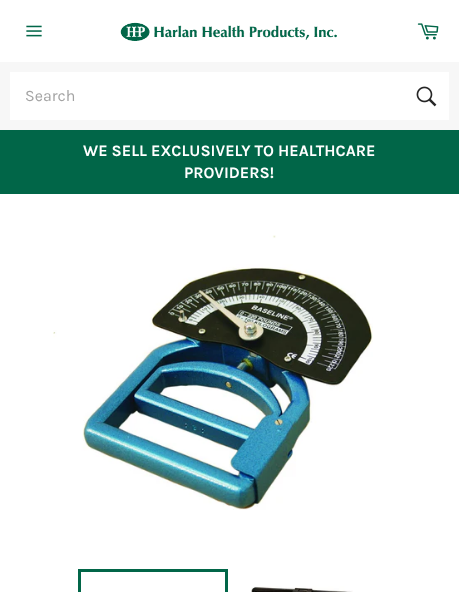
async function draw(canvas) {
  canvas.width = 459
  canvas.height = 592
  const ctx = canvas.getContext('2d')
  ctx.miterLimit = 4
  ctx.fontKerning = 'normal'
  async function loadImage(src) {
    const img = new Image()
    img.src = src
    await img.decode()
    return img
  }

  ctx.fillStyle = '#fff'
  ctx.fillRect(0, 0, 459, 592)
  ctx.drawImage(await loadImage('image0.png'), 26, 25, 16, 12)
  ctx.drawImage(await loadImage('image1.png'), 120, 22, 217, 19)
  ctx.drawImage(await loadImage('image2.png'), 417, 23, 22, 17)
  ctx.fillStyle = '#f7f7f7'
  ctx.fillRect(0, 62, 459, 68)
  ctx.fillStyle = '#fff'
  ctx.fillRect(10, 72, 439, 48)
  ctx.font = '16px Karla'
  ctx.fillStyle = '#a3a3a3'
  ctx.fillText('Search', 25, 101)
  ctx.drawImage(await loadImage('image3.png'), 416, 86, 21, 21)
  ctx.fillStyle = '#016648'
  ctx.fillRect(0, 130, 459, 64)
  ctx.font = 'bold 16px Karla'
  ctx.fillStyle = '#fff'
  ctx.fillText('WE SELL EXCLUSIVELY TO HEALTHCARE', 83, 156)
  ctx.fillText('PROVIDERS!', 184, 178)
  ctx.drawImage(await loadImage('image4.png'), 53, 235, 320, 275)
  ctx.strokeStyle = '#016648'
  ctx.lineWidth = 3
  ctx.strokeRect(79.5, 570.5, 147, 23)
  ctx.drawImage(await loadImage('image5.png'), 251, 586, 102, 6)
}

draw(document.querySelector('canvas'))
